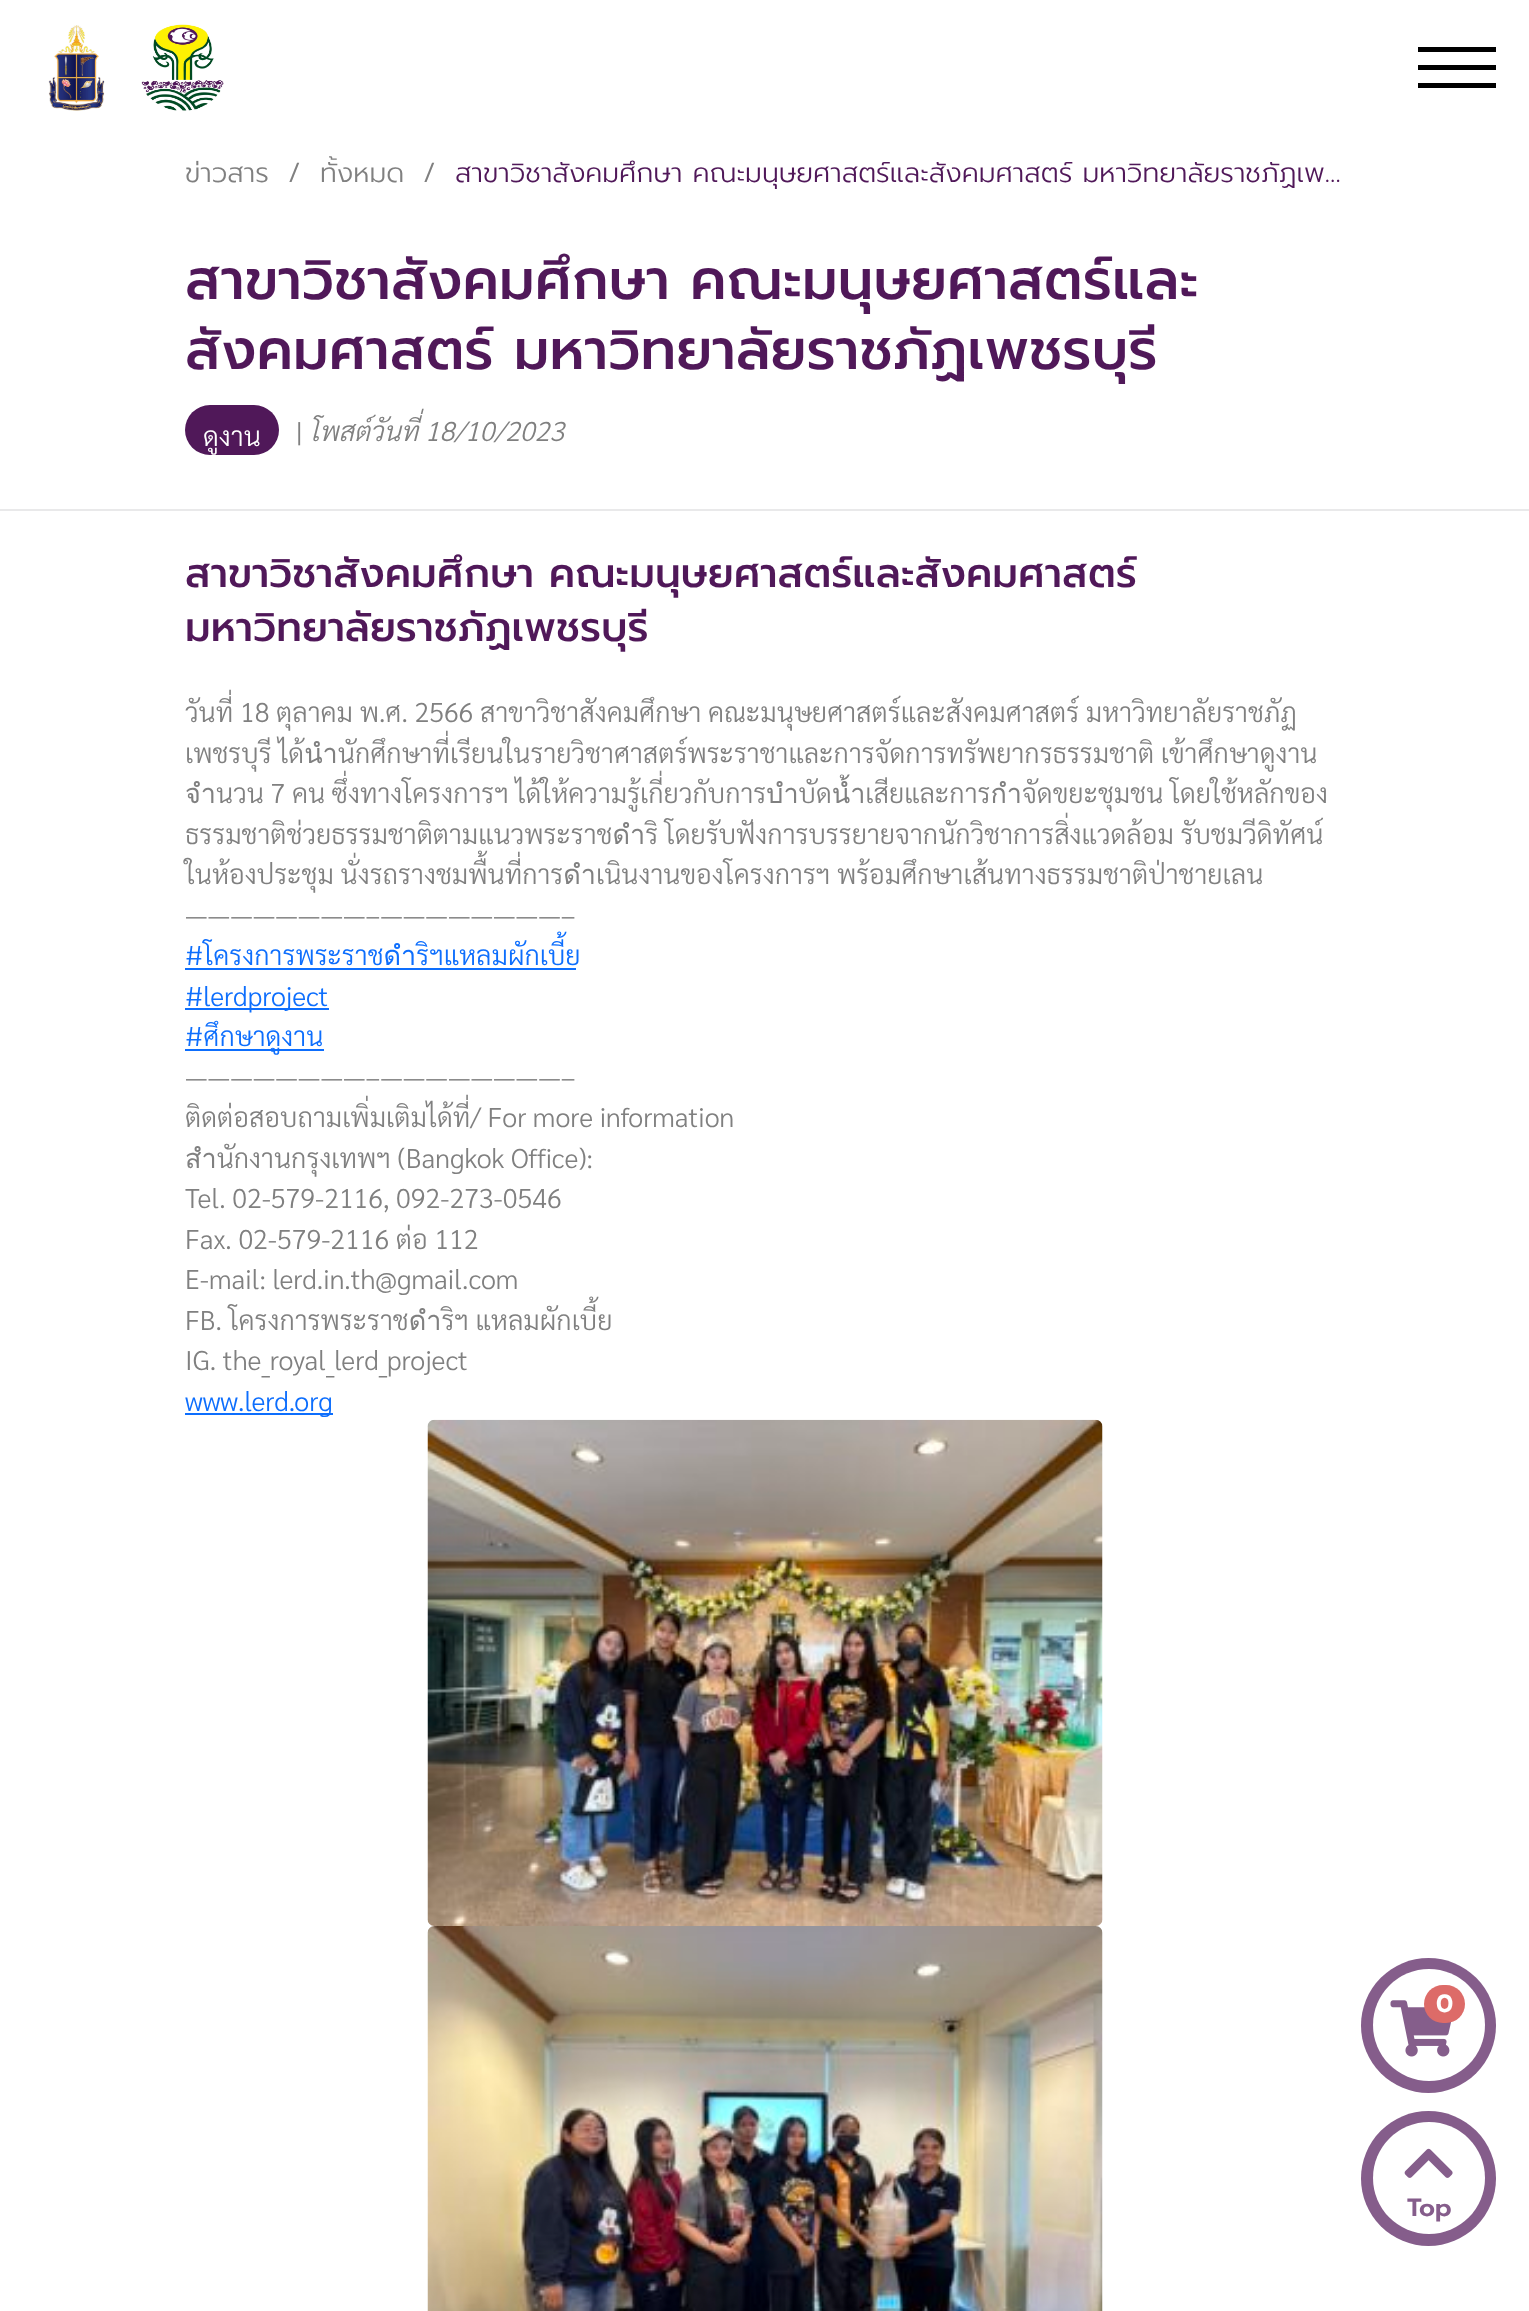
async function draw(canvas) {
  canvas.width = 1529
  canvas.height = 2311
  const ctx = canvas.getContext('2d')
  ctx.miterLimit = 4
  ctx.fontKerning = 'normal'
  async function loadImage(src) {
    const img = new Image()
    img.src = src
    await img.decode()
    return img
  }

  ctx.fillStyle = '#fff'
  ctx.fillRect(0, 0, 1529, 2311)
  ctx.drawImage(await loadImage('image0.png'), 48, 25, 57, 86)
  ctx.drawImage(await loadImage('image1.png'), 141, 24, 83, 87)
  ctx.fillStyle = '#000'
  ctx.fillRect(1418, 47, 78, 5)
  ctx.fillRect(1418, 65, 78, 5)
  ctx.fillRect(1418, 83, 78, 5)
  ctx.save()
  ctx.beginPath()
  ctx.rect(185, 153, 1161, 41)
  ctx.clip()
  ctx.font = '300 27px Prompt'
  ctx.fillStyle = '#808080'
  ctx.fillText('ข่าวสาร', 185, 182)
  ctx.restore()
  ctx.font = '300 27px Prompt'
  ctx.fillStyle = '#808080'
  ctx.fillText('/', 288, 182)
  ctx.fillText('ทั้งหมด', 320, 182)
  ctx.fillText('/', 423, 182)
  ctx.fillStyle = '#501859'
  ctx.fillText('สาขาวิชาสังคมศึกษา คณะมนุษยศาสตร์และสังคมศาสตร์ มหาวิทยาลัยราชภัฏเพ…', 455, 182)
  ctx.font = '500 56.25px Prompt'
  ctx.fillText('สาขาวิชาสังคมศึกษา คณะมนุษยศาสตร์และ', 185, 299)
  ctx.fillText('สังคมศาสตร์ มหาวิทยาลัยราชภัฏเพชรบุรี', 185, 369)
  ctx.beginPath()
  ctx.roundRect(185, 405, 94, 50, 25)
  ctx.fill()
  ctx.font = '300 27px Sarabun'
  ctx.fillStyle = '#fff'
  ctx.fillText('ดูงาน', 203, 446)
  ctx.fillStyle = '#808080'
  ctx.fillText('|', 296, 441)
  ctx.font = 'italic 300 27px Sarabun'
  ctx.fillText('โพสต์วันที่ 18/10/2023', 309, 441)
  ctx.fillStyle = '#e9e9ea'
  ctx.fillRect(0, 509, 1529, 2)
  ctx.font = '500 40.5px Prompt'
  ctx.fillStyle = '#501859'
  ctx.fillText('สาขาวิชาสังคมศึกษา คณะมนุษยศาสตร์และสังคมศาสตร์', 185, 587)
  ctx.fillText('มหาวิทยาลัยราชภัฏเพชรบุรี', 185, 641)
  ctx.font = '300 27px Sarabun'
  ctx.fillStyle = '#808080'
  ctx.fillText('วันที่ 18 ตุลาคม พ.ศ. 2566 สาขาวิชาสังคมศึกษา คณะมนุษยศาสตร์และสังคมศาสตร์ มหาวิทยาลัยราชภัฏ', 185, 722)
  ctx.fillText('เพชรบุรี ได้นำนักศึกษาที่เรียนในรายวิชาศาสตร์พระราชาและการจัดการทรัพยากรธรรมชาติ เข้าศึกษาดูงาน', 185, 763)
  ctx.fillText('จำนวน 7 คน ซึ่งทางโครงการฯ ได้ให้ความรู้เกี่ยวกับการบำบัดน้ำเสียและการกำจัดขยะชุมชน โดยใช้หลักของ', 185, 803)
  ctx.fillText('ธรรมชาติช่วยธรรมชาติตามแนวพระราชดำริ โดยรับฟังการบรรยายจากนักวิชาการสิ่งแวดล้อม รับชมวีดิทัศน์', 185, 844)
  ctx.fillText('ในห้องประชุม นั่งรถรางชมพื้นที่การดำเนินงานของโครงการฯ พร้อมศึกษาเส้นทางธรรมชาติป่าชายเลน', 185, 884)
  ctx.fillText('————————–————————–', 185, 925)
  ctx.fillStyle = '#0d6efd'
  ctx.fillText('#โครงการพระราชดำริฯแหลมผักเบี้ย', 185, 965)
  ctx.fillRect(185, 968, 391, 2)
  ctx.fillRect(185, 1008, 144, 2)
  ctx.fillText('#lerdproject', 185, 1006)
  ctx.fillRect(185, 1049, 139, 2)
  ctx.fillText('#ศึกษาดูงาน', 185, 1046)
  ctx.fillStyle = '#808080'
  ctx.fillText('————————–————————–', 185, 1087)
  ctx.fillText('ติดต่อสอบถามเพิ่มเติมได้ที่/ For more information', 185, 1127)
  ctx.fillText('สำนักงานกรุงเทพฯ (Bangkok Office):', 185, 1168)
  ctx.fillText('Tel. 02-579-2116, 092-273-0546', 185, 1208)
  ctx.fillText('Fax. 02-579-2116 ต่อ 112', 185, 1249)
  ctx.fillText('E-mail: lerd.in.th@gmail.com', 185, 1289)
  ctx.fillText('FB. โครงการพระราชดำริฯ แหลมผักเบี้ย', 185, 1330)
  ctx.fillText('IG. the_royal_lerd_project', 185, 1370)
  ctx.fillStyle = '#0d6efd'
  ctx.fillRect(185, 1413, 148, 2)
  ctx.fillText('www.lerd.org', 185, 1411)
  ctx.drawImage(await loadImage('image2.png'), 427, 1419, 676, 507)
  ctx.drawImage(await loadImage('image3.png'), 427, 1926, 676, 385)
  ctx.fillStyle = '#855d8b'
  ctx.beginPath()
  ctx.arc(1428.5, 2025.5, 67.5, 0, 2 * Math.PI)
  ctx.fill()
  ctx.fillStyle = '#fff'
  ctx.beginPath()
  ctx.arc(1429, 2025, 56, 0, 2 * Math.PI)
  ctx.fill()
  ctx.drawImage(await loadImage('image4.png'), 1390, 2000, 61, 57)
  ctx.fillStyle = '#dd6b68'
  ctx.beginPath()
  ctx.roundRect(1424, 1985, 41, 38, 19)
  ctx.fill()
  ctx.font = '600 25px Prompt'
  ctx.fillStyle = '#fff'
  ctx.fillText('0', 1436, 2012)
  ctx.fillStyle = '#855d8b'
  ctx.beginPath()
  ctx.arc(1428.5, 2178.5, 67.5, 0, 2 * Math.PI)
  ctx.fill()
  ctx.fillStyle = '#fff'
  ctx.beginPath()
  ctx.arc(1429, 2178, 56, 0, 2 * Math.PI)
  ctx.fill()
  ctx.drawImage(await loadImage('image5.png'), 1404, 2148, 49, 30)
  ctx.fillStyle = '#855d8b'
  ctx.fillText('Top', 1407, 2216)
}

draw(document.querySelector('canvas'))
